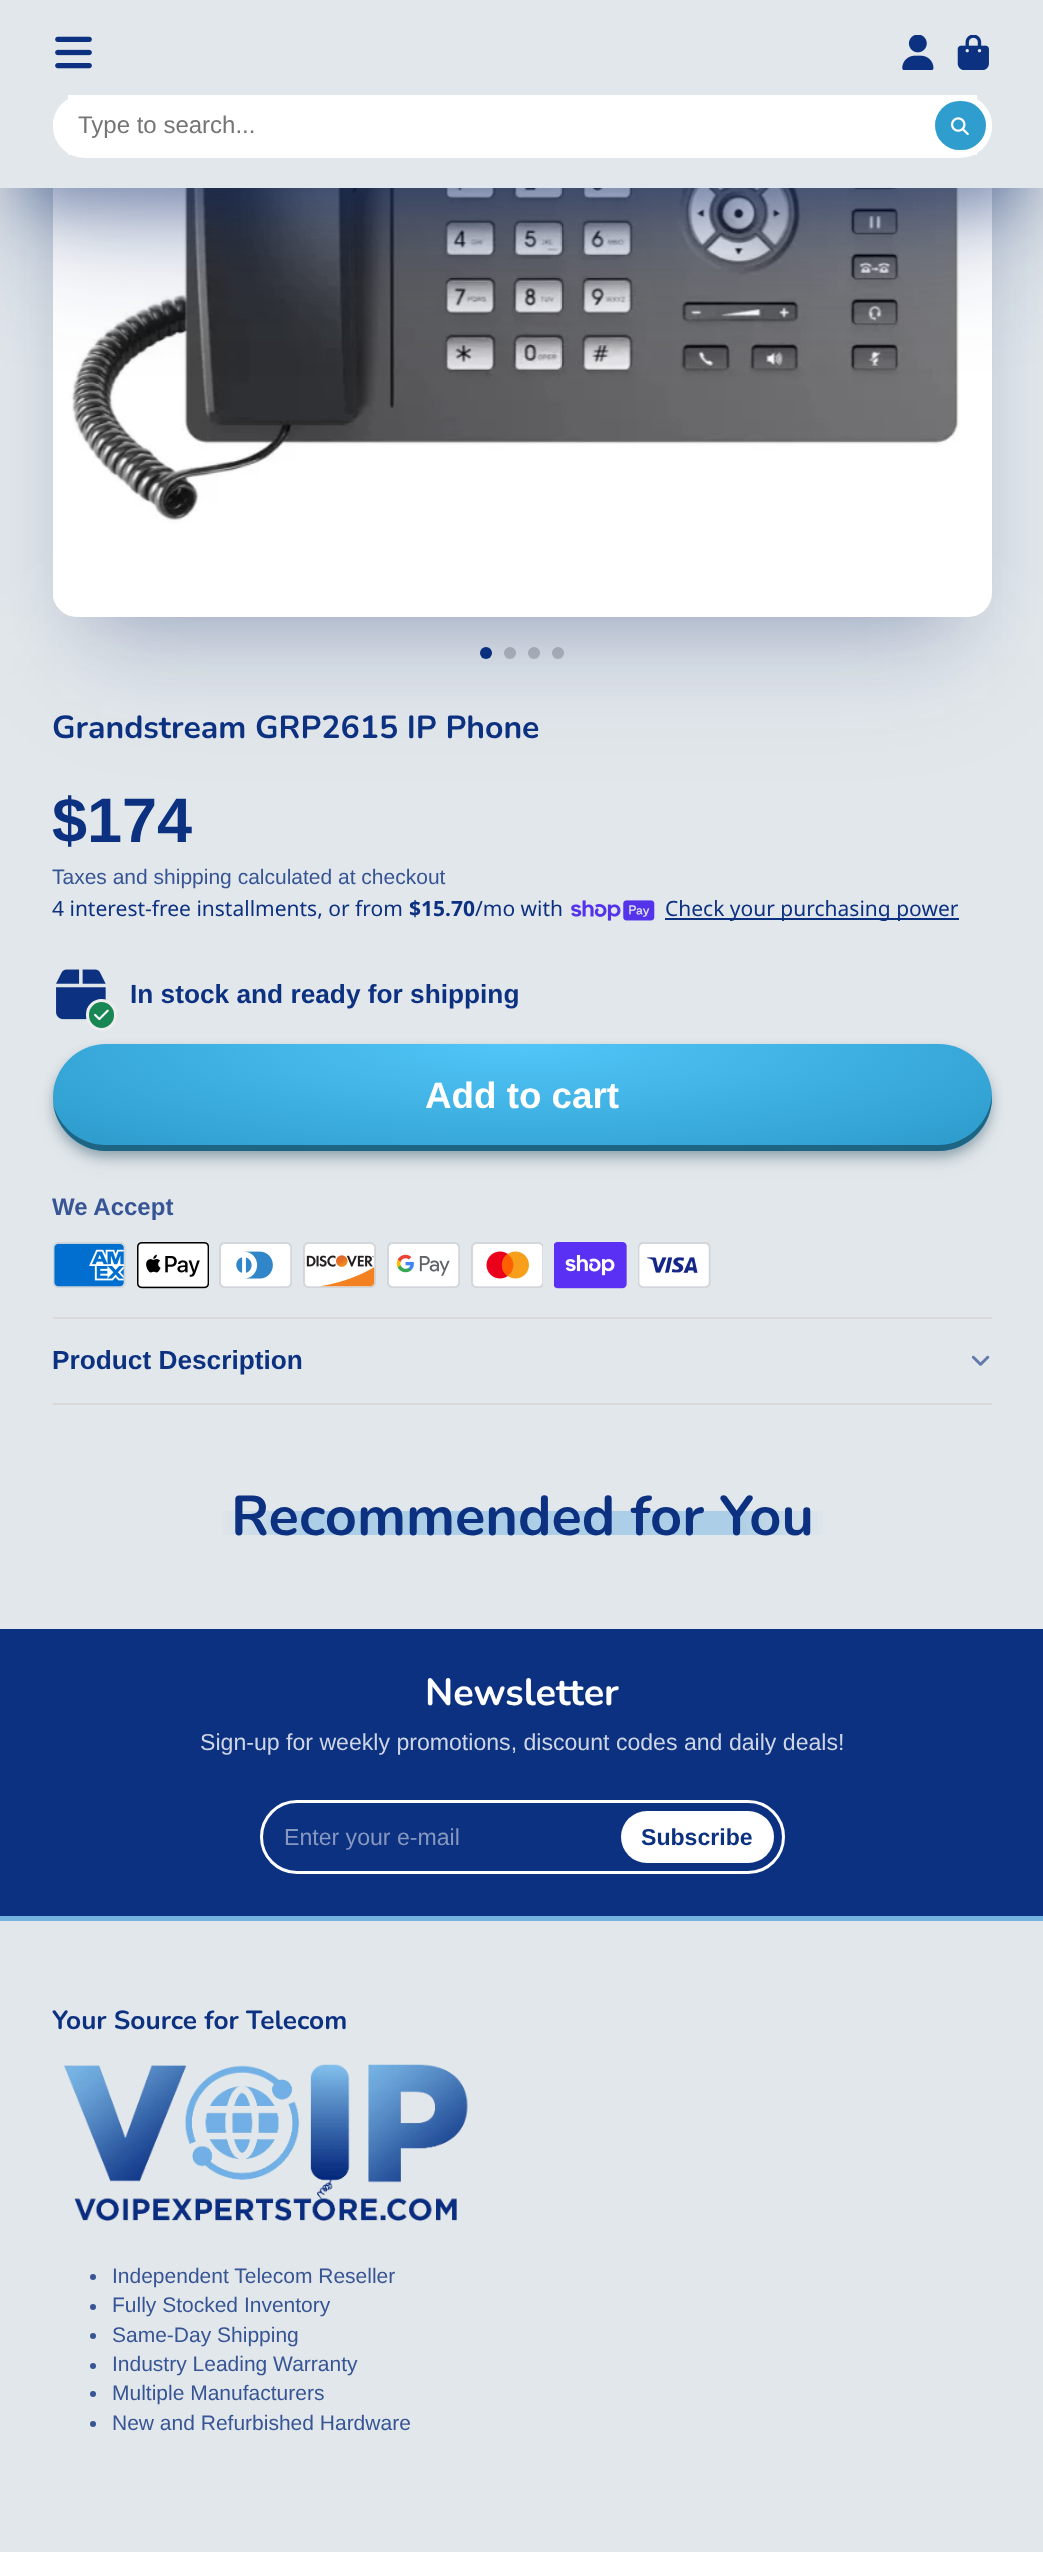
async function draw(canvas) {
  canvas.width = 1043
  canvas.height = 2552
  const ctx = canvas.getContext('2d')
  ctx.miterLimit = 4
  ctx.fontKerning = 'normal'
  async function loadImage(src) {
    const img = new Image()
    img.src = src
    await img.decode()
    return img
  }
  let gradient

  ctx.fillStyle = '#e2e7eb'
  ctx.fillRect(0, 0, 1043, 2552)
  ctx.fillStyle = '#0c3180'
  ctx.beginPath()
  ctx.arc(486, 653, 6, 0, 2 * Math.PI)
  ctx.fill()
  ctx.fillStyle = '#b5b9bc'
  ctx.beginPath()
  ctx.arc(510, 653, 6, 0, 2 * Math.PI)
  ctx.fill()
  ctx.beginPath()
  ctx.arc(534, 653, 6, 0, 2 * Math.PI)
  ctx.fill()
  ctx.beginPath()
  ctx.arc(558, 653, 6, 0, 2 * Math.PI)
  ctx.fill()
  ctx.fillStyle = '#0a28694d'
  ctx.filter = 'blur(39.5px)'
  ctx.beginPath()
  ctx.rect(92, -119, 861, 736)
  ctx.fill()
  ctx.filter = 'none'
  ctx.fillStyle = '#0a28691a'
  ctx.filter = 'blur(65.5px)'
  ctx.beginPath()
  ctx.rect(80, -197, 886, 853)
  ctx.fill()
  ctx.filter = 'none'
  ctx.fillStyle = '#fff'
  ctx.beginPath()
  ctx.roundRect(53, -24, 939, 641, 24)
  ctx.fill()
  ctx.drawImage(await loadImage('image4.png'), 53, 188, 907, 419)
  ctx.fillStyle = '#0a286966'
  ctx.filter = 'blur(29px)'
  ctx.beginPath()
  ctx.rect(21, 60, 1002, 146)
  ctx.fill()
  ctx.filter = 'none'
  ctx.fillStyle = '#0a28694d'
  ctx.filter = 'blur(65.5px)'
  ctx.beginPath()
  ctx.rect(21, 87, 1002, 146)
  ctx.fill()
  ctx.filter = 'none'
  ctx.fillStyle = '#e2e7eb'
  ctx.fillRect(0, 0, 1043, 188)
  ctx.drawImage(await loadImage('image0.png'), 55, 36, 37, 33)
  ctx.drawImage(await loadImage('image1.png'), 902, 35, 32, 35)
  ctx.drawImage(await loadImage('image2.png'), 957, 35, 32, 35)
  ctx.fillStyle = '#fff'
  ctx.beginPath()
  ctx.roundRect(53, 95, 939, 60, 30)
  ctx.fill()
  ctx.fillRect(68, 95, 909, 60)
  ctx.beginPath()
  ctx.roundRect(53, 95, 939, 63, 31.5)
  ctx.fill()
  ctx.font = '24px Liberation Sans'
  ctx.fillStyle = '#757575'
  ctx.fillText('Type to search...', 78, 133)
  ctx.fillStyle = '#2f9ecf'
  ctx.beginPath()
  ctx.roundRect(935, 101, 51, 49, 24.5)
  ctx.fill()
  ctx.drawImage(await loadImage('image3.png'), 951, 117, 18, 18)
  ctx.font = 'bold 32px Nunito'
  ctx.fillStyle = '#0c3180'
  ctx.fillText('Grandstream GRP2615 IP Phone', 52, 738)
  ctx.font = 'bold 63px Liberation Sans'
  ctx.fillText('$174', 52, 842)
  ctx.font = '21px Liberation Sans'
  ctx.fillStyle = '#375595'
  ctx.fillText('Taxes and shipping calculated at checkout', 52, 884)
  ctx.font = '21px Noto Sans'
  ctx.fillStyle = '#0c3180'
  ctx.fillText('4 interest-free installments, or from', 52, 916)
  ctx.font = 'bold 21px Noto Sans'
  ctx.fillText('$15.70', 409, 916)
  ctx.font = '21px Noto Sans'
  ctx.fillText('/mo with', 475, 916)
  ctx.drawImage(await loadImage('image5.png'), 571, 900, 84, 21)
  ctx.fillRect(665, 918, 294, 2)
  ctx.fillText('Check your purchasing power', 665, 916)
  ctx.drawImage(await loadImage('image6.png'), 56, 969, 50, 51)
  ctx.fillStyle = '#198754'
  ctx.beginPath()
  ctx.roundRect(87.5, 1000.5, 28, 29, 14)
  ctx.fill()
  ctx.strokeStyle = '#ededed'
  ctx.lineWidth = 3
  ctx.stroke()
  ctx.drawImage(await loadImage('image7.png'), 94, 1009, 15, 12)
  ctx.font = 'bold 26.25px Liberation Sans'
  ctx.fillStyle = '#0c3180'
  ctx.fillText('In stock and ready for shipping', 130, 1003)
  ctx.fillStyle = '#133f5226'
  ctx.filter = 'blur(11px)'
  ctx.beginPath()
  ctx.roundRect(59, 1061, 927, 96, 48)
  ctx.fill()
  ctx.filter = 'none'
  ctx.fillStyle = '#133f524d'
  ctx.filter = 'blur(5.5px)'
  ctx.beginPath()
  ctx.roundRect(53, 1050, 939, 107, 53.5)
  ctx.fill()
  ctx.filter = 'none'
  ctx.save()
  ctx.beginPath()
  ctx.roundRect(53, 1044, 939, 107, 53.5)
  ctx.clip()
  ctx.fillStyle = '#133f5226'
  ctx.filter = 'blur(11px)'
  ctx.beginPath()
  ctx.roundRect(59, 1061, 927, 96, 48)
  ctx.fill()
  ctx.filter = 'none'
  ctx.fillStyle = '#133f524d'
  ctx.filter = 'blur(5.5px)'
  ctx.beginPath()
  ctx.roundRect(53, 1050, 939, 107, 53.5)
  ctx.fill()
  ctx.filter = 'none'
  ctx.restore()
  gradient = ctx.createRadialGradient(522, 4590.83, 0, 522, 4590.83, 664)
  gradient.addColorStop(0, '#52c6f9')
  gradient.addColorStop(0.9, '#2f9ecf')
  ctx.fillStyle = gradient
  ctx.beginPath()
  ctx.roundRect(53, 1044, 939, 107, 53.5)
  ctx.save()
  ctx.clip()
  ctx.scale(1, 151 / 664)
  ctx.fillRect(0, 0, 1043, 11223)
  ctx.restore()
  ctx.fillStyle = '#1e6584'
  ctx.beginPath()
  ctx.moveTo(53, 1104)
  ctx.bezierCurveTo(57, 1130, 80, 1151, 106, 1151)
  ctx.lineTo(938, 1151)
  ctx.bezierCurveTo(969, 1151, 993, 1125, 992, 1095)
  ctx.bezierCurveTo(990, 1122, 967, 1145, 938, 1145)
  ctx.lineTo(106, 1145)
  ctx.bezierCurveTo(80, 1145, 59, 1127, 53, 1104)
  ctx.closePath()
  ctx.fill()
  ctx.font = 'bold 36.75px Liberation Sans'
  ctx.fillStyle = '#fff'
  ctx.fillText('Add to cart', 425, 1108)
  ctx.font = 'bold 24px Liberation Sans'
  ctx.fillStyle = '#375595'
  ctx.fillText('We Accept', 52, 1215)
  ctx.drawImage(await loadImage('image8.png'), 53, 1242, 73, 46)
  ctx.drawImage(await loadImage('image9.png'), 137, 1242, 72, 47)
  ctx.drawImage(await loadImage('image10.png'), 219, 1242, 73, 46)
  ctx.drawImage(await loadImage('image11.png'), 303, 1242, 73, 46)
  ctx.drawImage(await loadImage('image12.png'), 387, 1242, 73, 46)
  ctx.drawImage(await loadImage('image13.png'), 471, 1242, 72, 46)
  ctx.drawImage(await loadImage('image14.png'), 554, 1242, 73, 47)
  ctx.drawImage(await loadImage('image15.png'), 638, 1242, 73, 46)
  ctx.fillStyle = '#d9d9d9'
  ctx.fillRect(53, 1317, 939, 2)
  ctx.fillRect(53, 1403, 939, 2)
  ctx.font = 'bold 26.25px Liberation Sans'
  ctx.fillStyle = '#0c3180'
  ctx.fillText('Product Description', 52, 1369)
  ctx.drawImage(await loadImage('image16.png'), 971, 1355, 19, 11)
  gradient = ctx.createLinearGradient(218, 1522, 827, 1522)
  gradient.addColorStop(0, '#e2e7eb')
  gradient.addColorStop(0.15, '#accee6')
  gradient.addColorStop(0.85, '#accee6')
  gradient.addColorStop(1, '#e2e7eb')
  ctx.fillStyle = gradient
  ctx.fillRect(222, 1511, 601, 24)
  ctx.font = 'bold 55.9px Nunito'
  ctx.fillStyle = '#0c3180'
  ctx.fillText('Recommended for You', 231, 1535)
  ctx.fillRect(0, 1629, 1043, 287)
  ctx.font = 'bold 37.75px Nunito'
  ctx.fillStyle = '#fff'
  ctx.fillText('Newsletter', 425, 1705)
  ctx.font = '23.1px Liberation Sans'
  ctx.fillStyle = '#ced6e6'
  ctx.fillText('Sign-up for weekly promotions, discount codes and daily deals!', 200, 1750)
  ctx.beginPath()
  ctx.roundRect(261.5, 1801.5, 522, 71, 35.5)
  ctx.strokeStyle = '#fff'
  ctx.stroke()
  ctx.fillStyle = '#8698c0'
  ctx.fillText('Enter your e-mail', 284, 1845)
  ctx.fillStyle = '#fff'
  ctx.beginPath()
  ctx.roundRect(621, 1811, 153, 52, 26)
  ctx.fill()
  ctx.font = 'bold 23.1px Liberation Sans'
  ctx.fillStyle = '#0c3180'
  ctx.fillText('Subscribe', 641, 1845)
  ctx.fillStyle = '#75b4e0'
  ctx.fillRect(0, 1916, 1043, 5)
  ctx.font = 'bold 26.25px Nunito'
  ctx.fillStyle = '#0c3180'
  ctx.fillText('Your Source for Telecom', 52, 2029)
  ctx.drawImage(await loadImage('image17.png'), 64, 2064, 404, 157)
  ctx.fillStyle = '#375595'
  ctx.beginPath()
  ctx.arc(93, 2277, 3, 0, 2 * Math.PI)
  ctx.fill()
  ctx.font = '21px Liberation Sans'
  ctx.fillText('Independent Telecom Reseller', 112, 2283)
  ctx.beginPath()
  ctx.arc(93, 2307, 3, 0, 2 * Math.PI)
  ctx.fill()
  ctx.fillText('Fully Stocked Inventory', 112, 2312)
  ctx.beginPath()
  ctx.arc(93, 2336, 3, 0, 2 * Math.PI)
  ctx.fill()
  ctx.fillText('Same-Day Shipping', 112, 2342)
  ctx.beginPath()
  ctx.arc(93, 2366, 3, 0, 2 * Math.PI)
  ctx.fill()
  ctx.fillText('Industry Leading Warranty', 112, 2371)
  ctx.beginPath()
  ctx.arc(93, 2394, 3, 0, 2 * Math.PI)
  ctx.fill()
  ctx.fillText('Multiple Manufacturers', 112, 2400)
  ctx.beginPath()
  ctx.arc(93, 2424, 3, 0, 2 * Math.PI)
  ctx.fill()
  ctx.fillText('New and Refurbished Hardware', 112, 2430)
}

draw(document.querySelector('canvas'))
